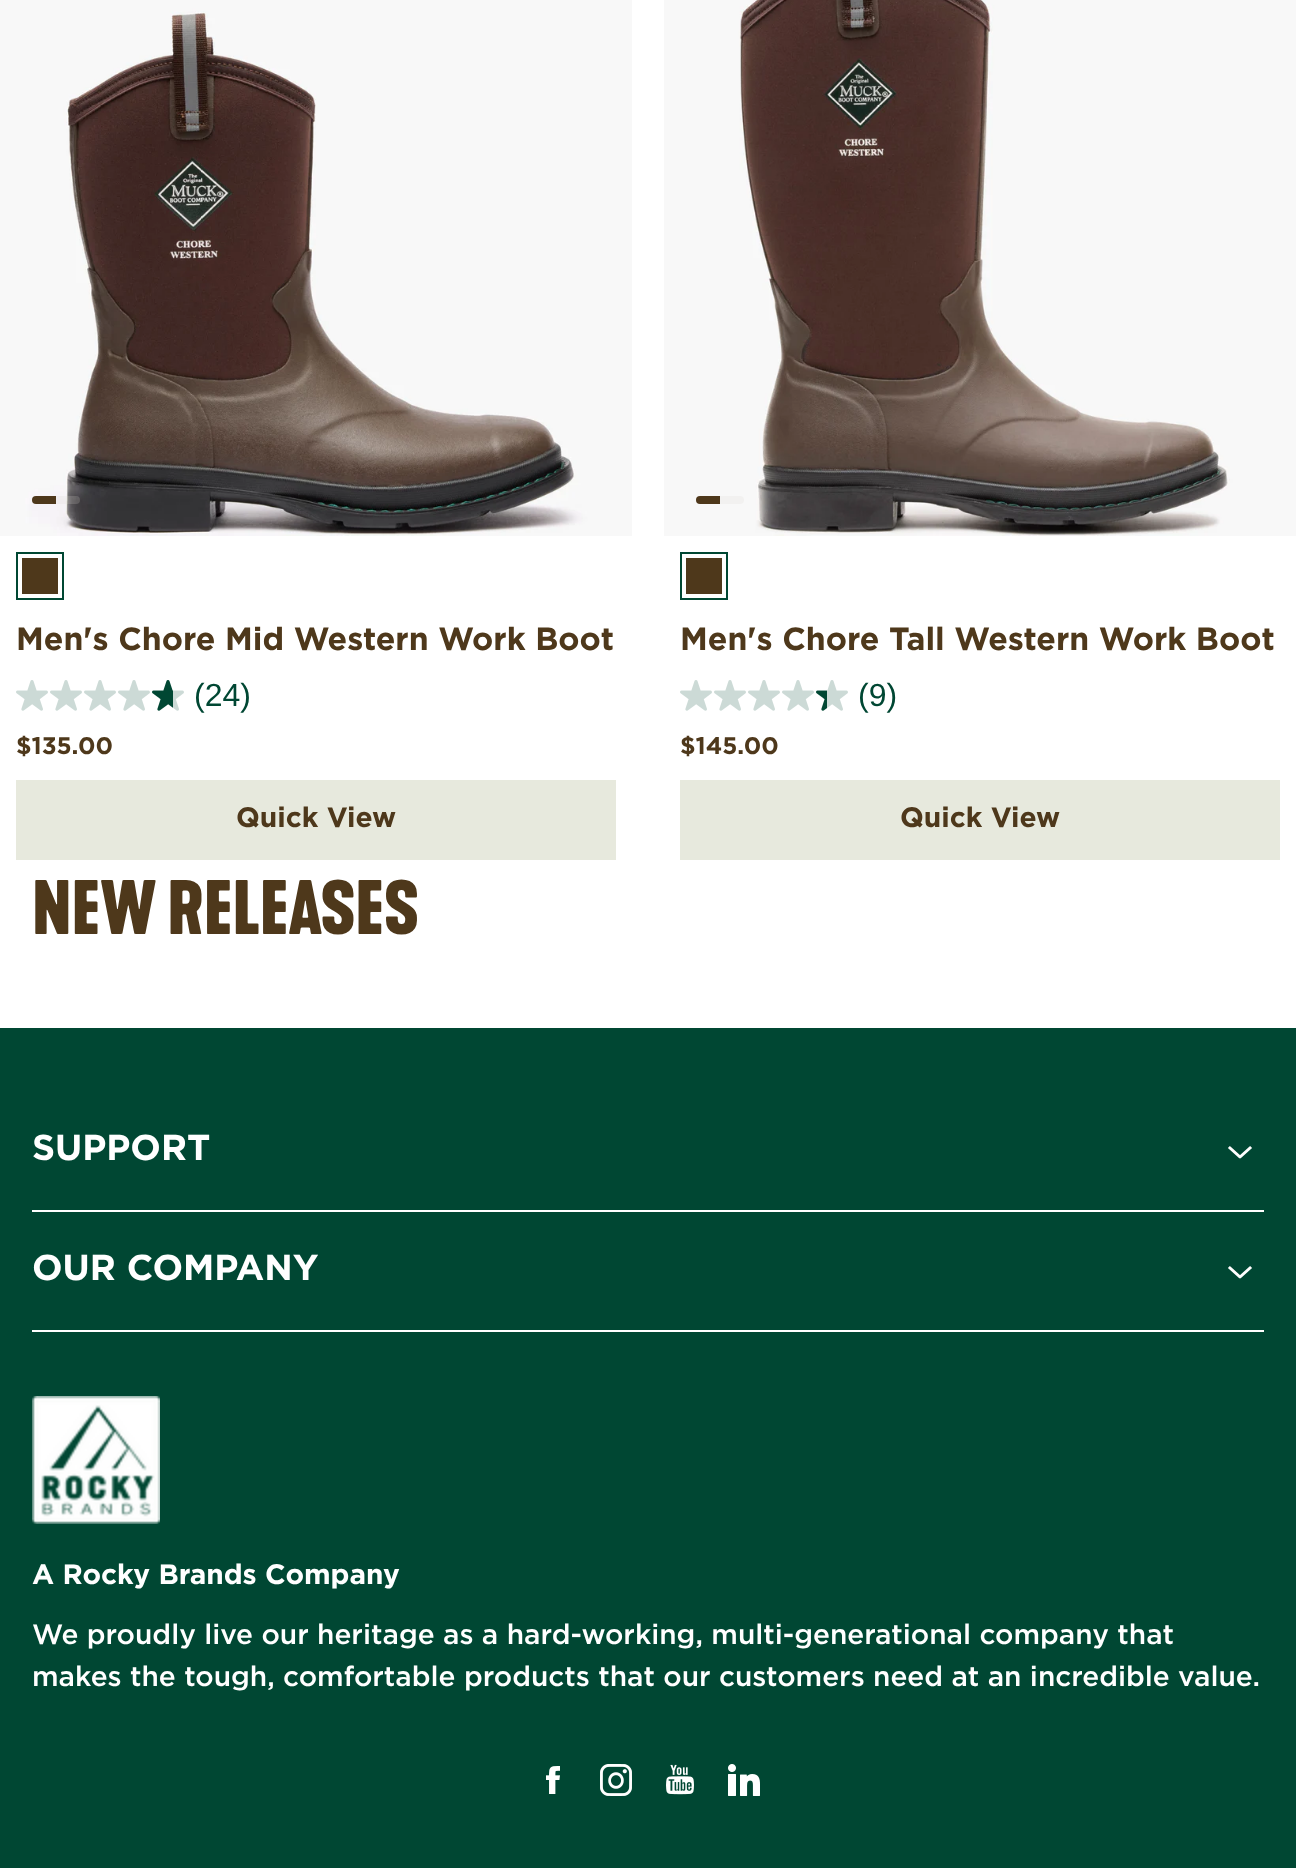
async function draw(canvas) {
  canvas.width = 1296
  canvas.height = 1868
  const ctx = canvas.getContext('2d')
  ctx.miterLimit = 4
  ctx.fontKerning = 'normal'
  async function loadImage(src) {
    const img = new Image()
    img.src = src
    await img.decode()
    return img
  }

  ctx.fillStyle = '#fff'
  ctx.fillRect(0, 0, 1296, 1868)
  ctx.drawImage(await loadImage('image0.png'), 0, 0, 632, 536)
  ctx.fillStyle = '#4e381b'
  ctx.beginPath()
  ctx.roundRect(32, 496, 24, 8, [4, 0, 0, 4])
  ctx.fill()
  ctx.fillStyle = '#dcd7d133'
  ctx.beginPath()
  ctx.roundRect(56, 496, 24, 8, [0, 4, 4, 0])
  ctx.fill()
  ctx.strokeStyle = '#004733'
  ctx.lineWidth = 2
  ctx.strokeRect(17, 553, 46, 46)
  ctx.fillStyle = '#4e381b'
  ctx.fillRect(22, 558, 36, 36)
  ctx.font = 'bold 32px Gotham'
  ctx.fillText('Men\'s Chore Mid Western Work Boot', 16, 650)
  ctx.drawImage(await loadImage('image1.png'), 16, 680, 32, 31)
  ctx.drawImage(await loadImage('image1.png'), 50, 680, 32, 31)
  ctx.drawImage(await loadImage('image1.png'), 84, 680, 32, 31)
  ctx.drawImage(await loadImage('image1.png'), 118, 680, 32, 31)
  ctx.drawImage(await loadImage('image2.png'), 152, 680, 32, 31)
  ctx.font = '32px Liberation Sans'
  ctx.fillStyle = '#004733'
  ctx.fillText('(24)', 194, 706)
  ctx.font = 'bold 24px Gotham'
  ctx.fillStyle = '#4e381b'
  ctx.fillText('$135.00', 16, 754)
  ctx.fillStyle = '#e7e9dd'
  ctx.fillRect(16, 780, 600, 80)
  ctx.font = 'bold 28px Gotham'
  ctx.fillStyle = '#4e381b'
  ctx.fillText('Quick View', 236, 827)
  ctx.drawImage(await loadImage('image3.png'), 664, 0, 632, 536)
  ctx.beginPath()
  ctx.roundRect(696, 496, 24, 8, [4, 0, 0, 4])
  ctx.fill()
  ctx.fillStyle = '#f2f1f0'
  ctx.beginPath()
  ctx.roundRect(720, 496, 24, 8, [0, 4, 4, 0])
  ctx.fill()
  ctx.strokeRect(681, 553, 46, 46)
  ctx.fillStyle = '#4e381b'
  ctx.fillRect(686, 558, 36, 36)
  ctx.font = 'bold 32px Gotham'
  ctx.fillText('Men\'s Chore Tall Western Work Boot', 680, 650)
  ctx.drawImage(await loadImage('image1.png'), 680, 680, 32, 31)
  ctx.drawImage(await loadImage('image1.png'), 714, 680, 32, 31)
  ctx.drawImage(await loadImage('image1.png'), 748, 680, 32, 31)
  ctx.drawImage(await loadImage('image1.png'), 782, 680, 32, 31)
  ctx.drawImage(await loadImage('image4.png'), 816, 680, 32, 31)
  ctx.font = '32px Liberation Sans'
  ctx.fillStyle = '#004733'
  ctx.fillText('(9)', 858, 706)
  ctx.font = 'bold 24px Gotham'
  ctx.fillStyle = '#4e381b'
  ctx.fillText('$145.00', 680, 754)
  ctx.fillStyle = '#e7e9dd'
  ctx.fillRect(680, 780, 600, 80)
  ctx.font = 'bold 28px Gotham'
  ctx.fillStyle = '#4e381b'
  ctx.fillText('Quick View', 900, 827)
  ctx.font = 'bold 72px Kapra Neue'
  ctx.fillText('NEW RELEASES', 32, 934)
  ctx.fillStyle = '#004733'
  ctx.fillRect(0, 1028, 1296, 840)
  ctx.fillStyle = '#fff'
  ctx.fillRect(32, 1210, 1232, 2)
  ctx.font = 'bold 36px Gotham'
  ctx.fillText('SUPPORT', 32, 1160)
  ctx.beginPath()
  ctx.moveTo(1230, 1148)
  ctx.lineTo(1240, 1157)
  ctx.lineTo(1250, 1148)
  ctx.strokeStyle = '#fff'
  ctx.lineWidth = 3
  ctx.lineCap = 'square'
  ctx.lineJoin = 'round'
  ctx.stroke()
  ctx.fillRect(32, 1330, 1232, 2)
  ctx.fillText('OUR COMPANY', 32, 1280)
  ctx.beginPath()
  ctx.moveTo(1230, 1268)
  ctx.lineTo(1240, 1277)
  ctx.lineTo(1250, 1268)
  ctx.stroke()
  ctx.drawImage(await loadImage('image5.png'), 32, 1396, 128, 128)
  ctx.font = 'bold 28px Gotham'
  ctx.fillText('A Rocky Brands Company', 32, 1584)
  ctx.font = '500 28px Gotham'
  ctx.fillText('We proudly live our heritage as a hard-working, multi-generational company that', 32, 1644)
  ctx.fillText('makes the tough, comfortable products that our customers need at an incredible value.', 32, 1686)
  ctx.drawImage(await loadImage('image6.png'), 546, 1766, 14, 28)
  ctx.drawImage(await loadImage('image7.png'), 600, 1764, 32, 32)
  ctx.drawImage(await loadImage('image8.png'), 666, 1764, 28, 31)
  ctx.drawImage(await loadImage('image9.png'), 728, 1764, 32, 32)
}

draw(document.querySelector('canvas'))
